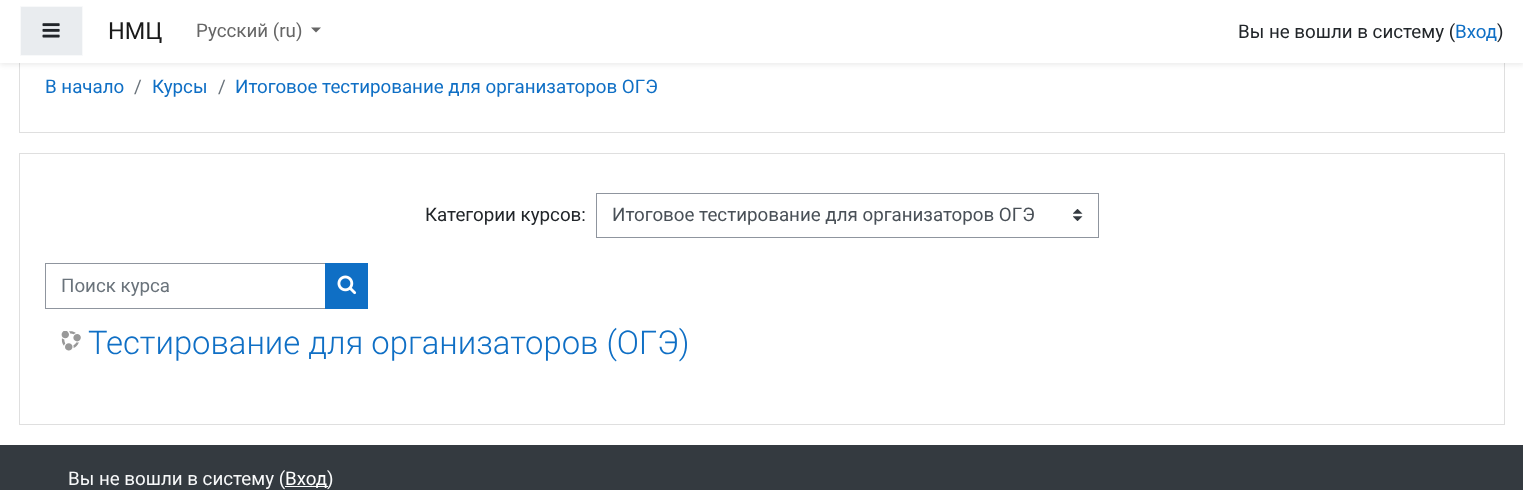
async function draw(canvas) {
  canvas.width = 1523
  canvas.height = 490
  const ctx = canvas.getContext('2d')
  ctx.miterLimit = 4
  ctx.fontKerning = 'normal'
  async function loadImage(src) {
    const img = new Image()
    img.src = src
    await img.decode()
    return img
  }

  ctx.fillStyle = '#fff'
  ctx.fillRect(0, 0, 1523, 490)
  ctx.strokeStyle = '#dfdfdf'
  ctx.strokeRect(19.5, -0.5, 1485, 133)
  ctx.fillStyle = '#00000014'
  ctx.filter = 'blur(2.5px)'
  ctx.beginPath()
  ctx.rect(0, 3, 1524, 62)
  ctx.fill()
  ctx.filter = 'none'
  ctx.fillStyle = '#fff'
  ctx.fillRect(0, 0, 1523, 63)
  ctx.fillStyle = '#e9ecef'
  ctx.beginPath()
  ctx.rect(20.5, 6.5, 62, 49)
  ctx.fill()
  ctx.strokeStyle = '#f8f9fa'
  ctx.stroke()
  ctx.drawImage(await loadImage('image0.png'), 42, 23, 18, 15)
  ctx.font = '23.5px Roboto'
  ctx.fillStyle = '#1a1a1a'
  ctx.fillText('НМЦ', 108, 39)
  ctx.font = '18.75px Roboto'
  ctx.fillStyle = '#666'
  ctx.fillText('Русский (ru)', 196, 37)
  ctx.beginPath()
  ctx.moveTo(311, 27.5)
  ctx.lineTo(321, 27.5)
  ctx.lineTo(316, 32.5)
  ctx.closePath()
  ctx.fill()
  ctx.fillStyle = '#212529'
  ctx.fillText('Вы не вошли в систему (', 1238, 38)
  ctx.fillStyle = '#0f6fc5'
  ctx.fillText('Вход', 1455, 38)
  ctx.fillStyle = '#212529'
  ctx.fillText(')', 1497, 38)
  ctx.fillStyle = '#0f6fc5'
  ctx.fillText('В начало', 45, 93)
  ctx.fillStyle = '#6a737b'
  ctx.fillText('/', 134, 93)
  ctx.fillStyle = '#0f6fc5'
  ctx.fillText('Курсы', 152, 93)
  ctx.fillStyle = '#6a737b'
  ctx.fillText('/', 218, 93)
  ctx.fillStyle = '#0f6fc5'
  ctx.fillText('Итоговое тестирование для организаторов ОГЭ', 235, 93)
  ctx.strokeStyle = '#dfdfdf'
  ctx.strokeRect(19.5, 153.5, 1485, 271)
  ctx.fillStyle = '#212529'
  ctx.fillText('Категории курсов:', 425, 221)
  ctx.drawImage(await loadImage('image1.png'), 1073, 209, 10, 12)
  ctx.strokeStyle = '#8f959e'
  ctx.strokeRect(596.5, 193.5, 502, 44)
  ctx.fillStyle = '#495057'
  ctx.fillText('Итоговое тестирование для организаторов ОГЭ', 612, 221)
  ctx.strokeRect(45.5, 263.5, 280, 45)
  ctx.fillStyle = '#6a737b'
  ctx.fillText('Поиск курса', 61, 292)
  ctx.fillStyle = '#0f6fc5'
  ctx.fillRect(325, 263, 43, 46)
  ctx.drawImage(await loadImage('image2.png'), 337, 275, 20, 20)
  ctx.drawImage(await loadImage('image3.png'), 61, 331, 20, 20)
  ctx.font = '300 32.8px Roboto'
  ctx.fillText('Тестирование для организаторов (ОГЭ)', 88, 354)
  ctx.fillStyle = '#343a40'
  ctx.fillRect(0, 445, 1523, 45)
  ctx.font = '18.75px Roboto'
  ctx.fillStyle = '#f8f9fa'
  ctx.fillText('Вы не вошли в систему (', 68, 485)
  ctx.fillStyle = '#fff'
  ctx.fillRect(285, 486, 43, 1)
  ctx.fillText('Вход', 285, 485)
  ctx.fillStyle = '#f8f9fa'
  ctx.fillText(')', 327, 485)
}

draw(document.querySelector('canvas'))
